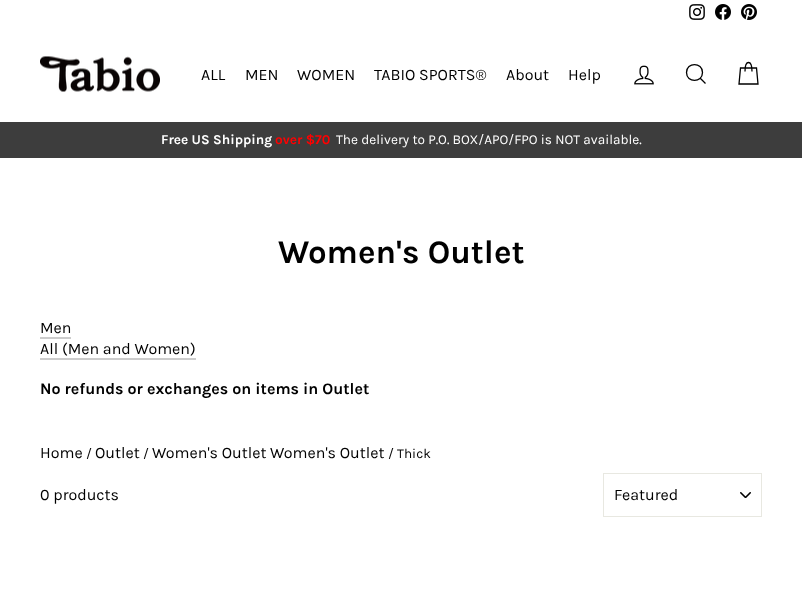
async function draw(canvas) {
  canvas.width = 802
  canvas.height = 607
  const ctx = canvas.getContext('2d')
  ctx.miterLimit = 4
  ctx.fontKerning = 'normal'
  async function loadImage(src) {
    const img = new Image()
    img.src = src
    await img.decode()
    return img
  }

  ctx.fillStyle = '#fff'
  ctx.fillRect(0, 0, 802, 607)
  ctx.drawImage(await loadImage('image0.png'), 689, 4, 16, 16)
  ctx.drawImage(await loadImage('image1.png'), 715, 4, 16, 16)
  ctx.drawImage(await loadImage('image2.png'), 741, 4, 16, 16)
  ctx.drawImage(await loadImage('image3.png'), 40, 56, 120, 36)
  ctx.font = '16px Karla'
  ctx.fillStyle = '#000'
  ctx.fillText('ALL', 201, 80)
  ctx.fillText('MEN', 245, 80)
  ctx.fillText('WOMEN', 297, 80)
  ctx.fillText('TABIO SPORTS®︎', 374, 80)
  ctx.fillText('About', 506, 80)
  ctx.fillText('Help', 568, 80)
  ctx.drawImage(await loadImage('image4.png'), 634, 65, 20, 20)
  ctx.beginPath()
  ctx.moveTo(702.5, 72.5)
  ctx.bezierCurveTo(702.5, 83, 686.5, 83, 686.5, 72.5)
  ctx.bezierCurveTo(686.5, 62, 702.5, 62, 702.5, 72.5)
  ctx.closePath()
  ctx.moveTo(705.5, 83.5)
  ctx.lineTo(700.5, 78.5)
  ctx.strokeStyle = '#000'
  ctx.lineWidth = 1.3
  ctx.stroke()
  ctx.beginPath()
  ctx.moveTo(745, 71.5)
  ctx.bezierCurveTo(745, 59.5, 752, 59.5, 752, 71.5)
  ctx.moveTo(740.5, 68)
  ctx.lineTo(756.5, 68)
  ctx.lineTo(758, 84)
  ctx.lineTo(739, 84)
  ctx.closePath()
  ctx.stroke()
  ctx.fillStyle = '#3d3d3d'
  ctx.fillRect(0, 122, 802, 36)
  ctx.font = 'bold 13.6px Karla'
  ctx.fillStyle = '#fff'
  ctx.fillText('Free US Shipping', 161, 144)
  ctx.fillStyle = '#f00'
  ctx.fillText('over $70', 275, 144)
  ctx.font = '13.6px Karla'
  ctx.fillStyle = '#fff'
  ctx.fillText('The delivery to P.O. BOX/APO/FPO is NOT available.', 336, 144)
  ctx.font = 'bold 33px Karla'
  ctx.fillStyle = '#000'
  ctx.fillText('Women\'s Outlet', 278, 263)
  ctx.fillStyle = '#ccc'
  ctx.fillRect(40, 337, 31, 2)
  ctx.font = '16px Karla'
  ctx.fillStyle = '#000'
  ctx.fillText('Men', 40, 333)
  ctx.fillStyle = '#ccc'
  ctx.fillRect(40, 358, 156, 2)
  ctx.fillStyle = '#000'
  ctx.fillText('All (Men and Women)', 40, 354)
  ctx.font = 'bold 16px Karla'
  ctx.fillText('No refunds or exchanges on items in Outlet', 40, 394)
  ctx.font = '16px Karla'
  ctx.fillText('Home', 40, 458)
  ctx.font = '13.6px Karla'
  ctx.fillText('/', 86, 458)
  ctx.font = '16px Karla'
  ctx.fillText('Outlet', 95, 458)
  ctx.font = '13.6px Karla'
  ctx.fillText('/', 143, 458)
  ctx.font = '16px Karla'
  ctx.fillText('Women\'s Outlet', 152, 458)
  ctx.fillText('Women\'s Outlet', 270, 458)
  ctx.font = '13.6px Karla'
  ctx.fillText('/ Thick', 388, 458)
  ctx.font = '16px Karla'
  ctx.fillText('0 products', 40, 500)
  ctx.drawImage(await loadImage('image5.png'), 740, 492, 11, 6)
  ctx.strokeStyle = '#e8e8e1'
  ctx.lineWidth = 1
  ctx.strokeRect(603.5, 473.5, 158, 43)
  ctx.fillText('Featured', 614, 500)
}

draw(document.querySelector('canvas'))
